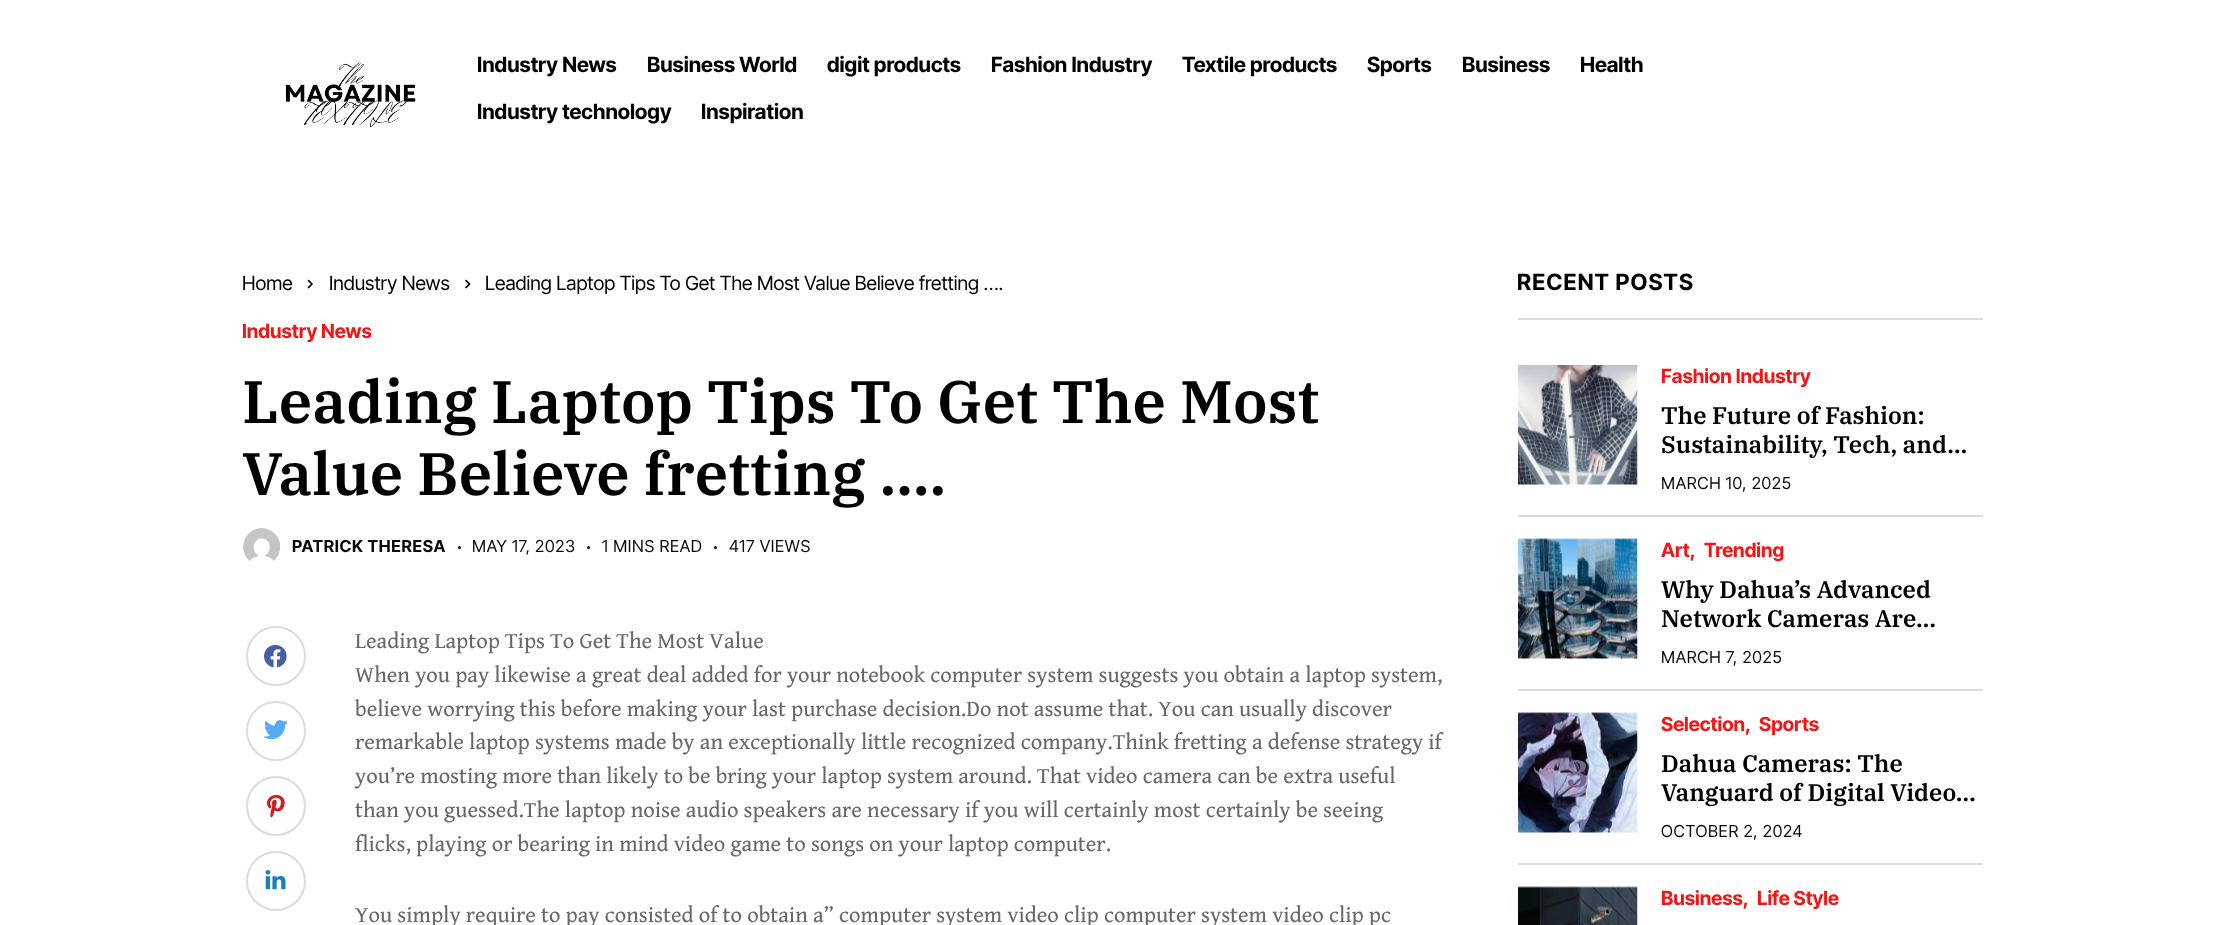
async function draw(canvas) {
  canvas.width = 2224
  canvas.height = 925
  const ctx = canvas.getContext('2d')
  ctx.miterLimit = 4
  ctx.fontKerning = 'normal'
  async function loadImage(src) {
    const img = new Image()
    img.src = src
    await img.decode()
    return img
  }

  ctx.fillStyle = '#fff'
  ctx.fillRect(0, 0, 2224, 925)
  ctx.drawImage(await loadImage('image0.png'), 285, 62, 131, 66)
  ctx.font = 'bold 21px Inter Tight'
  ctx.fillStyle = '#000'
  ctx.fillText('Industry News', 477, 72)
  ctx.fillText('Business World', 647, 72)
  ctx.fillText('digit products', 827, 72)
  ctx.fillText('Fashion Industry', 991, 72)
  ctx.fillText('Textile products', 1182, 72)
  ctx.fillText('Sports', 1367, 72)
  ctx.fillText('Business', 1462, 72)
  ctx.fillText('Health', 1580, 72)
  ctx.fillText('Industry technology', 477, 119)
  ctx.fillText('Inspiration', 701, 119)
  ctx.font = '19.5px Inter Tight'
  ctx.fillText('Home', 242, 290)
  ctx.drawImage(await loadImage('image1.png'), 307, 279, 6, 10)
  ctx.fillText('Industry News', 329, 290)
  ctx.drawImage(await loadImage('image2.png'), 465, 279, 6, 10)
  ctx.fillText('Leading Laptop Tips To Get The Most Value Believe fretting ….', 485, 290)
  ctx.font = 'bold 19.5px Inter Tight'
  ctx.fillStyle = '#f21717'
  ctx.fillText('Industry News', 242, 338)
  ctx.font = '600 60px IBM Plex Serif'
  ctx.fillStyle = '#000'
  ctx.fillText('Leading Laptop Tips To Get The Most', 242, 423)
  ctx.fillText('Value Believe fretting ….', 242, 495)
  ctx.drawImage(await loadImage('image3.png'), 243, 528, 38, 35)
  ctx.letterSpacing = '0.7px'
  ctx.font = 'bold 16.5px Inter Tight'
  ctx.fillStyle = '#0a0a0a'
  ctx.fillText('PATRICK THERESA', 292, 552)
  ctx.beginPath()
  ctx.arc(459.5, 547.5, 1.5, 0, 2 * Math.PI)
  ctx.fill()
  ctx.font = '16.5px Inter Tight'
  ctx.fillText('MAY 17, 2023', 472, 552)
  ctx.beginPath()
  ctx.arc(588.5, 547.5, 1.5, 0, 2 * Math.PI)
  ctx.fill()
  ctx.fillText('1 MINS READ', 602, 552)
  ctx.beginPath()
  ctx.arc(715.5, 547.5, 1.5, 0, 2 * Math.PI)
  ctx.fill()
  ctx.fillText('417 VIEWS', 729, 552)
  ctx.beginPath()
  ctx.arc(276, 656, 29, 0, 2 * Math.PI)
  ctx.strokeStyle = '#dbdbdb'
  ctx.lineWidth = 2
  ctx.stroke()
  ctx.drawImage(await loadImage('image4.png'), 264, 644, 23, 24)
  ctx.beginPath()
  ctx.arc(276, 731, 29, 0, 2 * Math.PI)
  ctx.stroke()
  ctx.drawImage(await loadImage('image5.png'), 264, 720, 24, 20)
  ctx.beginPath()
  ctx.arc(276, 806, 29, 0, 2 * Math.PI)
  ctx.stroke()
  ctx.drawImage(await loadImage('image6.png'), 267, 794, 18, 24)
  ctx.beginPath()
  ctx.arc(276, 881, 29, 0, 2 * Math.PI)
  ctx.stroke()
  ctx.drawImage(await loadImage('image7.png'), 265, 870, 21, 20)
  ctx.letterSpacing = '0px'
  ctx.font = '22.5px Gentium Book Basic'
  ctx.fillStyle = '#676767'
  ctx.fillText('Leading Laptop Tips To Get The Most Value', 355, 648)
  ctx.fillText('When you pay likewise a great deal added for your notebook computer system suggests you obtain a laptop system,', 355, 682)
  ctx.fillText('believe worrying this before making your last purchase decision.Do not assume that. You can usually discover', 355, 716)
  ctx.fillText('remarkable laptop systems made by an exceptionally little recognized company.Think fretting a defense strategy if', 355, 749)
  ctx.fillText('you’re mosting more than likely to be bring your laptop system around. That video camera can be extra useful', 355, 783)
  ctx.fillText('than you guessed.The laptop noise audio speakers are necessary if you will certainly most certainly be seeing', 355, 817)
  ctx.fillText('flicks, playing or bearing in mind video game to songs on your laptop computer.', 355, 851)
  ctx.fillText('You simply require to pay consisted of to obtain a” computer system video clip computer system video clip pc', 355, 922)
  ctx.fillStyle = '#dbdbdb'
  ctx.fillRect(1518, 318, 465, 2)
  ctx.letterSpacing = '1.1px'
  ctx.font = 'bold 22.5px Inter Tight'
  ctx.fillStyle = '#000'
  ctx.fillText('RECENT POSTS', 1517, 290)
  ctx.drawImage(await loadImage('image8.png'), 1518, 365, 120, 120)
  ctx.letterSpacing = '0px'
  ctx.font = '600 38px IBM Plex Serif'
  ctx.fillStyle = '#737c8a'
  ctx.fillText('1', 1566, 438)
  ctx.font = 'bold 19.5px Inter Tight'
  ctx.fillStyle = '#f21717'
  ctx.fillText('Fashion Industry', 1661, 383)
  ctx.font = '600 24px IBM Plex Serif'
  ctx.fillStyle = '#000'
  ctx.fillText('The Future of Fashion:', 1661, 424)
  ctx.fillText('Sustainability, Tech, and…', 1661, 453)
  ctx.letterSpacing = '0.7px'
  ctx.font = '16.5px Inter Tight'
  ctx.fillStyle = '#0a0a0a'
  ctx.fillText('MARCH 10, 2025', 1661, 489)
  ctx.fillStyle = '#dbdbdb'
  ctx.fillRect(1518, 515, 465, 2)
  ctx.drawImage(await loadImage('image9.png'), 1518, 538, 120, 121)
  ctx.letterSpacing = '0px'
  ctx.font = '600 38px IBM Plex Serif'
  ctx.fillStyle = '#5c6c78'
  ctx.fillText('2', 1566, 613)
  ctx.font = 'bold 19.5px Inter Tight'
  ctx.fillStyle = '#f21717'
  ctx.fillText('Art,', 1661, 557)
  ctx.fillText('Trending', 1704, 557)
  ctx.font = '600 24px IBM Plex Serif'
  ctx.fillStyle = '#000'
  ctx.fillText('Why Dahua’s Advanced', 1661, 598)
  ctx.fillText('Network Cameras Are…', 1661, 627)
  ctx.letterSpacing = '0.7px'
  ctx.font = '16.5px Inter Tight'
  ctx.fillStyle = '#0a0a0a'
  ctx.fillText('MARCH 7, 2025', 1661, 663)
  ctx.fillStyle = '#dbdbdb'
  ctx.fillRect(1518, 689, 465, 2)
  ctx.drawImage(await loadImage('image10.png'), 1518, 712, 120, 121)
  ctx.letterSpacing = '0px'
  ctx.font = '600 38px IBM Plex Serif'
  ctx.fillStyle = '#72688a'
  ctx.fillText('3', 1566, 787)
  ctx.font = 'bold 19.5px Inter Tight'
  ctx.fillStyle = '#f21717'
  ctx.fillText('Selection,', 1661, 731)
  ctx.fillText('Sports', 1759, 731)
  ctx.font = '600 24px IBM Plex Serif'
  ctx.fillStyle = '#000'
  ctx.fillText('Dahua Cameras: The', 1661, 772)
  ctx.fillText('Vanguard of Digital Video…', 1661, 801)
  ctx.letterSpacing = '0.7px'
  ctx.font = '16.5px Inter Tight'
  ctx.fillStyle = '#0a0a0a'
  ctx.fillText('OCTOBER 2, 2024', 1661, 837)
  ctx.fillStyle = '#dbdbdb'
  ctx.fillRect(1518, 863, 465, 2)
  ctx.drawImage(await loadImage('image11.png'), 1518, 886, 120, 39)
  ctx.letterSpacing = '0px'
  ctx.font = 'bold 19.5px Inter Tight'
  ctx.fillStyle = '#f21717'
  ctx.fillText('Business,', 1661, 905)
  ctx.fillText('Life Style', 1757, 905)
}

draw(document.querySelector('canvas'))
